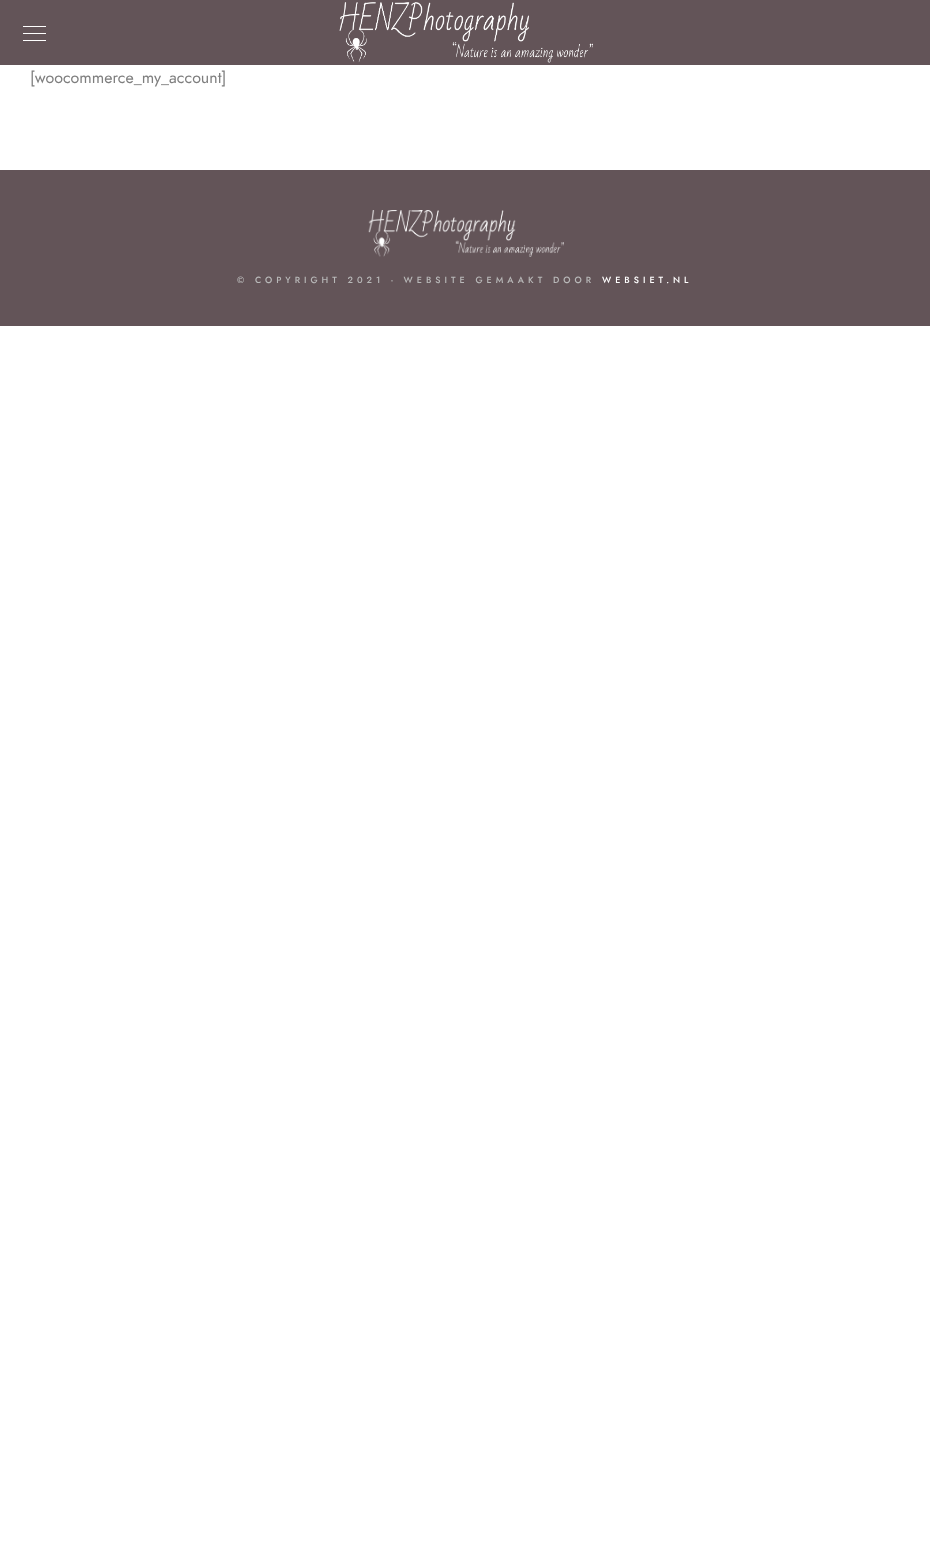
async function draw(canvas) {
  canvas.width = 930
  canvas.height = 1564
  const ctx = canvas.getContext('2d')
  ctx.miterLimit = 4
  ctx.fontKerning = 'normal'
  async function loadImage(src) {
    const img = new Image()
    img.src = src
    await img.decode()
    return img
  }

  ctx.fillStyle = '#fff'
  ctx.fillRect(0, 0, 930, 1564)
  ctx.fillStyle = '#635458'
  ctx.fillRect(0, 0, 930, 65)
  ctx.drawImage(await loadImage('image0.png'), 339, 2, 254, 61)
  ctx.fillStyle = '#fff'
  ctx.fillRect(23, 33, 23, 1)
  ctx.fillRect(23, 26, 23, 1)
  ctx.fillRect(23, 40, 23, 1)
  ctx.font = '16px Jost'
  ctx.fillStyle = '#7e7e7e'
  ctx.fillText('[woocommerce_my_account]', 30, 83)
  ctx.fillStyle = '#635458'
  ctx.fillRect(0, 170, 930, 156)
  ctx.drawImage(await loadImage('image1.png'), 368, 210, 196, 47)
  ctx.letterSpacing = '4px'
  ctx.font = '500 9px Jost'
  ctx.fillStyle = '#b8b8b8'
  ctx.fillText('© COPYRIGHT 2021 - WEBSITE GEMAAKT DOOR', 237, 283)
  ctx.fillStyle = '#fff'
  ctx.fillText('WEBSIET.NL', 602, 283)
}

draw(document.querySelector('canvas'))
